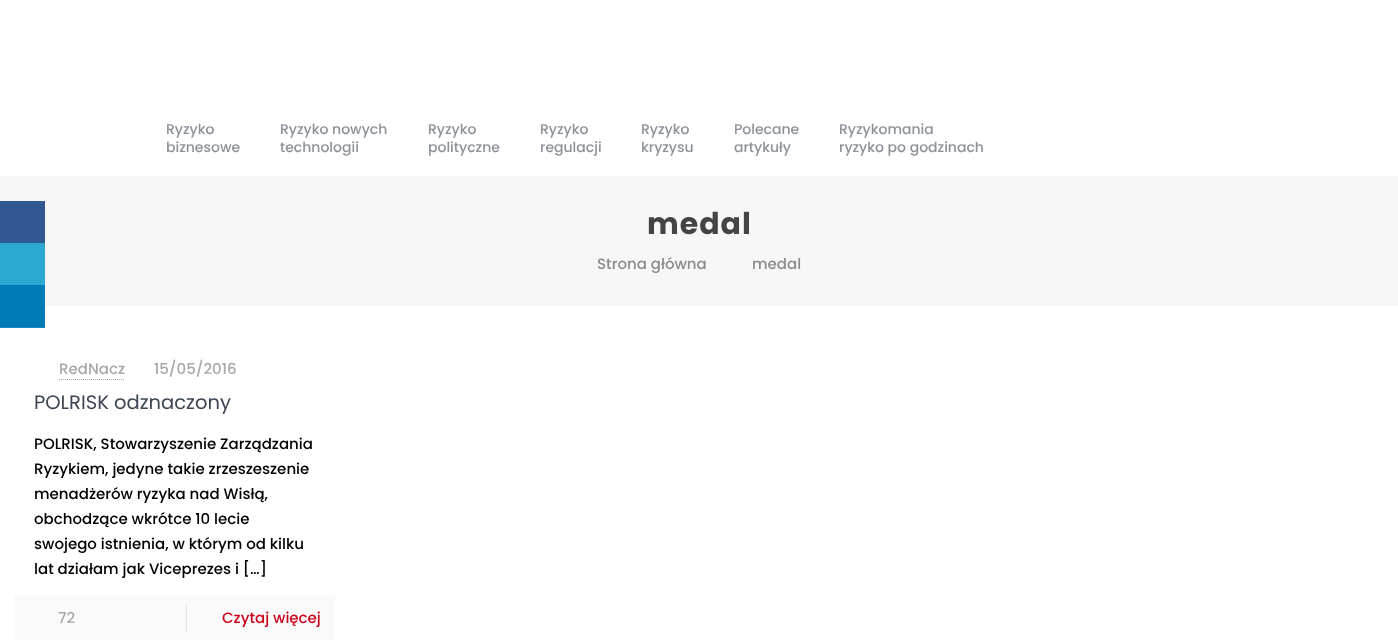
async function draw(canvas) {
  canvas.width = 1398
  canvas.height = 640
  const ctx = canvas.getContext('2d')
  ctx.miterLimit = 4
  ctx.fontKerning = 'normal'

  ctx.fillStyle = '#fff'
  ctx.fillRect(0, 0, 1398, 640)
  ctx.fillStyle = '#f7f7f7'
  ctx.fillRect(0, 176, 1398, 130)
  ctx.fillStyle = '#305891'
  ctx.fillRect(0, 201, 45, 42)
  ctx.fillStyle = '#2ca8d2'
  ctx.fillRect(0, 243, 45, 42)
  ctx.fillStyle = '#007bb6'
  ctx.fillRect(0, 285, 45, 42)
  ctx.fillStyle = '#1a88bd'
  ctx.fillRect(0, 327, 45, 1)
  ctx.font = '500 14px Poppins'
  ctx.fillStyle = '#8c9299'
  ctx.fillText('Ryzyko', 166, 134)
  ctx.fillText('biznesowe', 166, 152)
  ctx.fillText('Ryzyko nowych', 280, 134)
  ctx.fillText('technologii', 280, 152)
  ctx.fillText('Ryzyko', 428, 134)
  ctx.fillText('polityczne', 428, 152)
  ctx.fillText('Ryzyko', 540, 134)
  ctx.fillText('regulacji', 540, 152)
  ctx.fillText('Ryzyko', 641, 134)
  ctx.fillText('kryzysu', 641, 152)
  ctx.fillText('Polecane', 734, 134)
  ctx.fillText('artykuły', 734, 152)
  ctx.fillText('Ryzykomania', 839, 134)
  ctx.fillText('ryzyko po godzinach', 839, 152)
  ctx.letterSpacing = '1px'
  ctx.font = 'bold 30px Poppins'
  ctx.fillStyle = '#444'
  ctx.fillText('medal', 647, 234)
  ctx.letterSpacing = '0px'
  ctx.font = '500 15px Poppins'
  ctx.fillStyle = '#8c8c8c'
  ctx.fillText('Strona główna', 597, 269)
  ctx.fillText('medal', 752, 269)
  ctx.fillStyle = '#a8a8a8'
  ctx.fillText('RedNacz', 59, 374)
  ctx.beginPath()
  ctx.moveTo(59, 379.5)
  ctx.lineTo(125, 379.5)
  ctx.strokeStyle = '#a8a8a8'
  ctx.setLineDash([1, 1])
  ctx.stroke()
  ctx.fillText('15/05/2016', 154, 374)
  ctx.font = '19.5px Poppins'
  ctx.fillStyle = '#3c4653'
  ctx.fillText('POLRISK odznaczony', 34, 409)
  ctx.font = '500 15px Poppins'
  ctx.fillStyle = '#000'
  ctx.fillText('POLRISK, Stowarzyszenie Zarządzania', 34, 449)
  ctx.fillText('Ryzykiem, jedyne takie zrzeszeszenie', 34, 474)
  ctx.fillText('menadżerów ryzyka nad Wisłą,', 34, 499)
  ctx.fillText('obchodzące wkrótce 10 lecie', 34, 524)
  ctx.fillText('swojego istnienia, w którym od kilku', 34, 549)
  ctx.fillText('lat działam jak Viceprezes i […]', 34, 574)
  ctx.fillStyle = '#fafafa'
  ctx.fillRect(14, 596, 321, 44)
  ctx.fillStyle = '#a8a8a8'
  ctx.fillText('72', 58, 623)
  ctx.fillStyle = '#e6e6e6'
  ctx.fillRect(186, 603, 1, 30)
  ctx.fillStyle = '#cb051d'
  ctx.fillText('Czytaj więcej', 222, 623)
}

draw(document.querySelector('canvas'))
